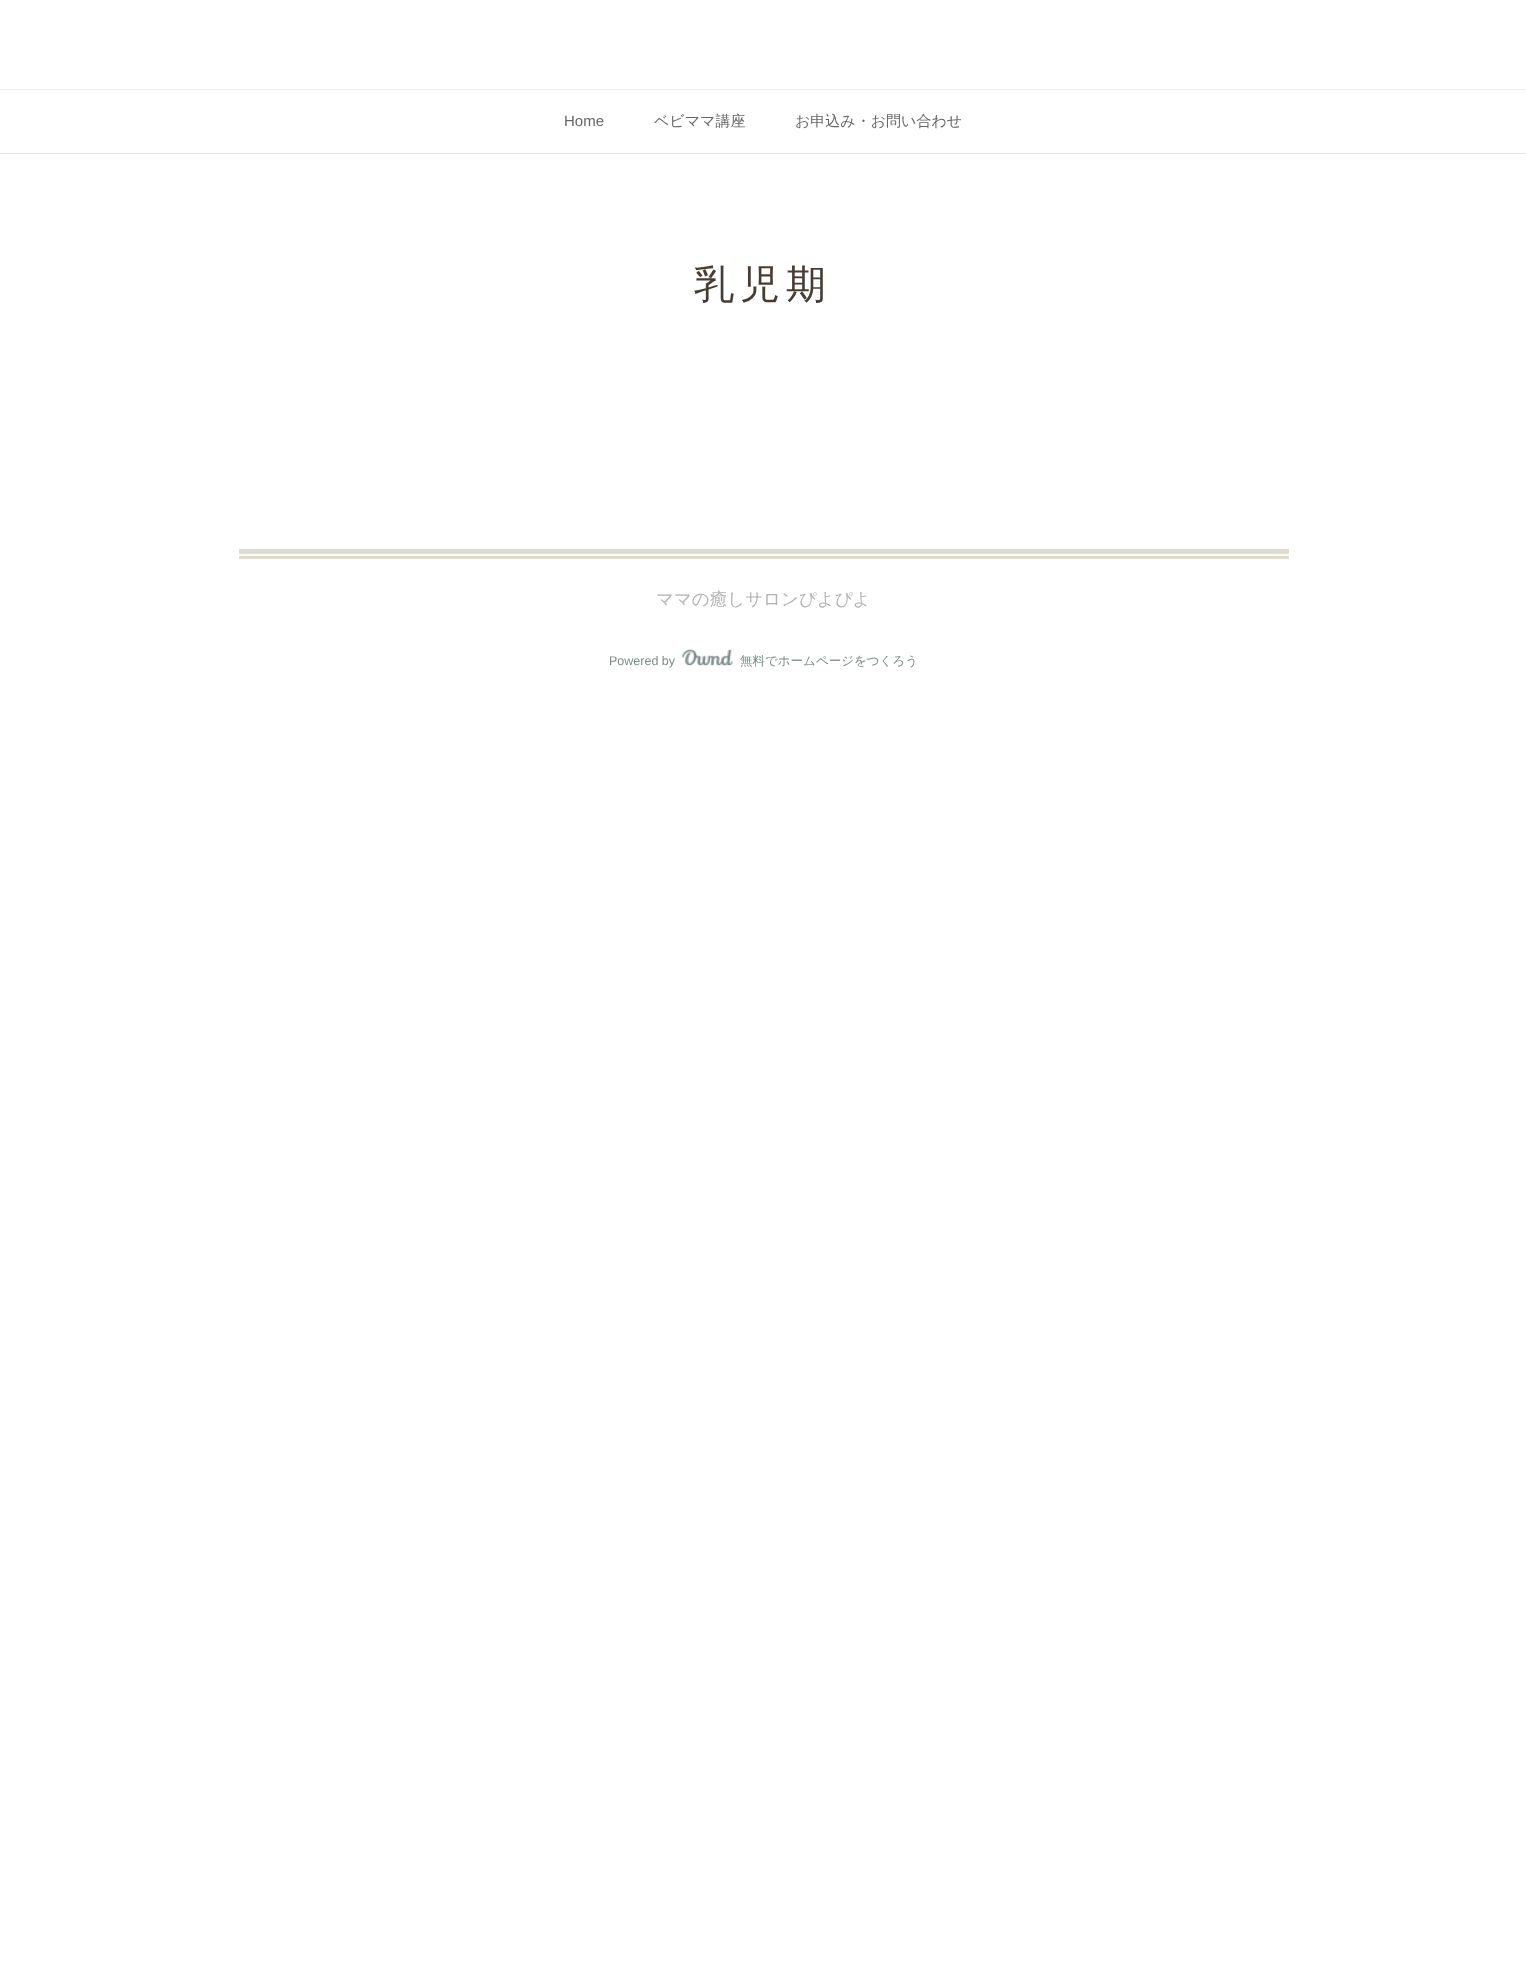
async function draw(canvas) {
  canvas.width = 1526
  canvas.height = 1982
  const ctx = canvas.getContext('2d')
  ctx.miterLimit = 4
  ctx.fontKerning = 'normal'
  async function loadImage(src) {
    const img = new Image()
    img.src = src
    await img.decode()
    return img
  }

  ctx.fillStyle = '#fff'
  ctx.fillRect(0, 0, 1526, 1982)
  ctx.fillStyle = '#eee'
  ctx.fillRect(0, 89, 1526, 1)
  ctx.fillStyle = '#e6e6e6'
  ctx.fillRect(0, 153, 1526, 1)
  ctx.font = '15px Liberation Sans'
  ctx.fillStyle = '#666'
  ctx.fillText('Home', 564, 126)
  ctx.font = '500 15px WenQuanYi Zen Hei'
  ctx.fillText('ベビママ講座', 654, 126)
  ctx.fillText('お申込み・お問い合わせ', 795, 126)
  ctx.letterSpacing = '6px'
  ctx.font = '500 40px WenQuanYi Zen Hei'
  ctx.fillStyle = '#473c34'
  ctx.fillText('乳児期', 694, 298)
  ctx.fillStyle = '#deddcd'
  ctx.fillRect(239, 549, 1050, 5)
  ctx.fillRect(239, 556, 1050, 3)
  ctx.letterSpacing = '0px'
  ctx.font = '500 17.5px WenQuanYi Zen Hei'
  ctx.fillStyle = '#b3b3b3'
  ctx.fillText('ママの癒しサロンぴよぴよ', 656, 605)
  ctx.font = '12.5px Liberation Sans'
  ctx.fillStyle = '#7d8b88'
  ctx.fillText('Powered by', 609, 665)
  ctx.drawImage(await loadImage('image0.png'), 681, 648, 52, 18)
  ctx.font = '500 12.5px WenQuanYi Zen Hei'
  ctx.fillText('無料でホームページをつくろう', 740, 665)
}

draw(document.querySelector('canvas'))
